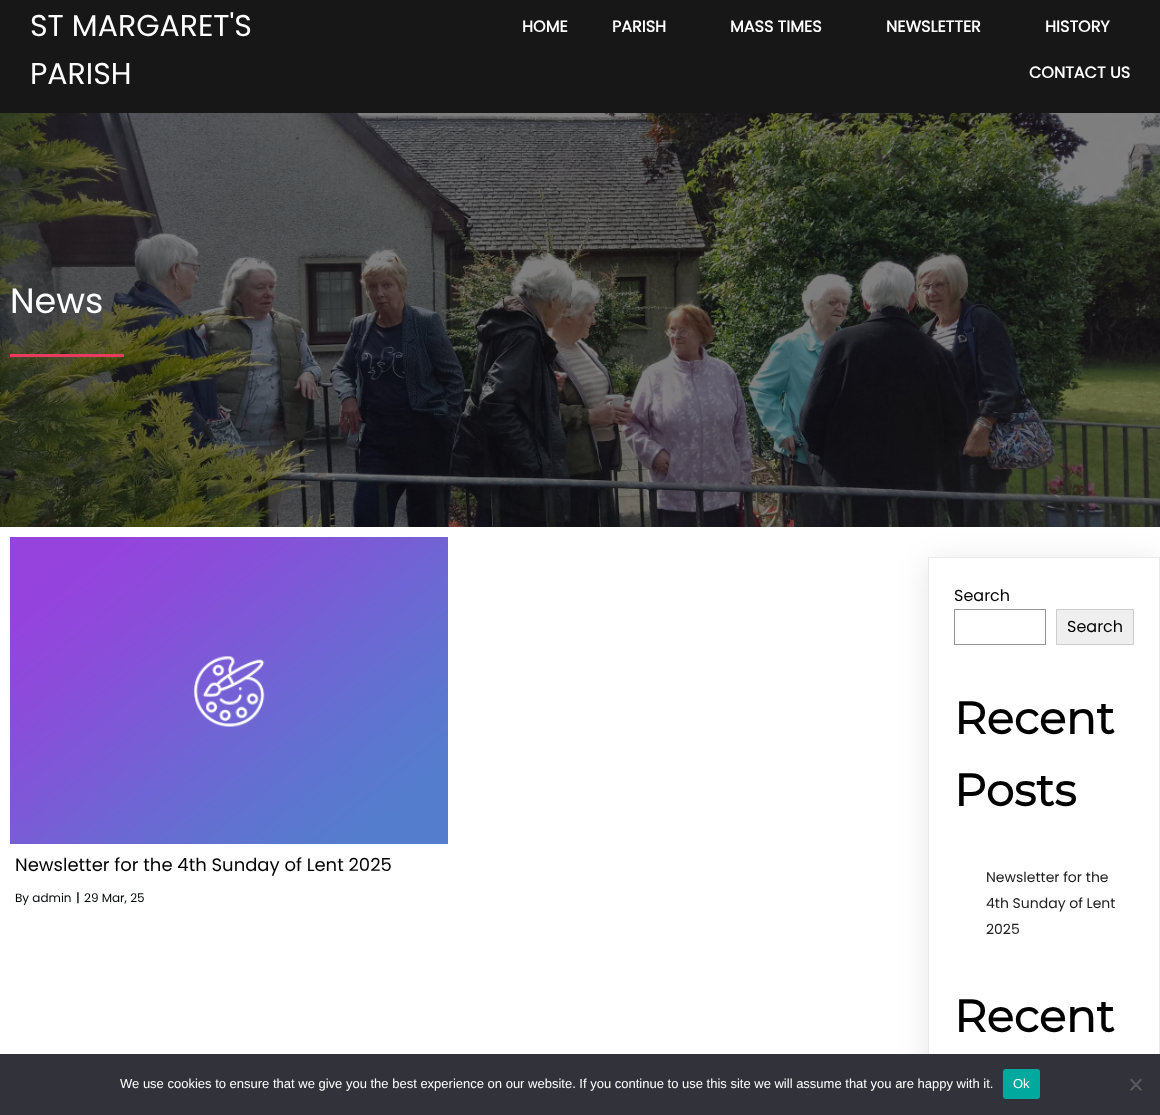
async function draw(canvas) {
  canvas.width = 1160
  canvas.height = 1115
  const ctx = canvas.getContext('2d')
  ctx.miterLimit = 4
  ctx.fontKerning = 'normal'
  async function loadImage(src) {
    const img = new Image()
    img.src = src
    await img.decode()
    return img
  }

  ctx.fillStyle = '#fff'
  ctx.fillRect(0, 0, 1160, 1115)
  ctx.fillStyle = '#171717'
  ctx.fillRect(0, 0, 1160, 113)
  ctx.font = '30px Poppins'
  ctx.fillStyle = '#fff'
  ctx.fillText('ST MARGARET\'S', 30, 36)
  ctx.fillText('PARISH', 30, 84)
  ctx.font = 'bold 16px Poppins'
  ctx.fillText('HOME', 522, 32)
  ctx.fillText('PARISH', 612, 32)
  ctx.fillText('MASS TIMES', 730, 32)
  ctx.fillText('NEWSLETTER', 886, 32)
  ctx.fillText('HISTORY', 1045, 32)
  ctx.fillText('CONTACT US', 1029, 78)
  ctx.save()
  ctx.beginPath()
  ctx.moveTo(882, 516)
  ctx.lineTo(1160, 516)
  ctx.lineTo(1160, 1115)
  ctx.lineTo(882, 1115)
  ctx.closePath()
  ctx.moveTo(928, 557)
  ctx.lineTo(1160, 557)
  ctx.lineTo(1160, 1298)
  ctx.lineTo(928, 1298)
  ctx.closePath()
  ctx.clip('evenodd')
  ctx.fillStyle = '#0000001a'
  ctx.filter = 'blur(15px)'
  ctx.beginPath()
  ctx.rect(928, 562, 232, 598)
  ctx.fill()
  ctx.filter = 'none'
  ctx.restore()
  ctx.drawImage(await loadImage('image0.png'), 0, 113, 1160, 414)
  ctx.font = '35px Poppins'
  ctx.fillText('News', 10, 313)
  ctx.fillStyle = '#ea3a60'
  ctx.fillRect(10, 354, 114, 3)
  ctx.drawImage(await loadImage('image1.png'), 10, 537, 438, 307)
  ctx.font = '18px Poppins'
  ctx.fillStyle = '#000'
  ctx.fillText('Newsletter for the 4th Sunday of Lent 2025', 15, 871)
  ctx.font = '12px Poppins'
  ctx.fillStyle = '#05090a'
  ctx.fillText('By admin', 15, 902)
  ctx.font = 'bold 12px Poppins'
  ctx.fillText('|', 76, 902)
  ctx.font = '12px Poppins'
  ctx.fillText('29 Mar, 25', 84, 902)
  ctx.strokeStyle = '#eaeaea'
  ctx.strokeRect(928.5, 557.5, 231, 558)
  ctx.font = '16px Poppins'
  ctx.fillStyle = '#000'
  ctx.fillText('Search', 954, 601)
  ctx.strokeStyle = '#949494'
  ctx.strokeRect(954.5, 609.5, 91, 35)
  ctx.fillStyle = '#efefef'
  ctx.beginPath()
  ctx.rect(1056.5, 609.5, 77, 35)
  ctx.fill()
  ctx.strokeStyle = '#ccc'
  ctx.stroke()
  ctx.fillStyle = '#000'
  ctx.fillText('Search', 1067, 632)
  ctx.font = 'bold 45px Montserrat'
  ctx.fillText('Recent', 954, 734)
  ctx.fillText('Posts', 954, 806)
  ctx.font = '14px Poppins'
  ctx.fillStyle = '#212121'
  ctx.fillText('Newsletter for the', 986, 882)
  ctx.fillText('4th Sunday of Lent', 986, 908)
  ctx.fillText('2025', 986, 934)
  ctx.font = 'bold 45px Montserrat'
  ctx.fillStyle = '#000'
  ctx.fillText('Recent', 954, 1032)
  ctx.fillStyle = '#32323a'
  ctx.fillRect(0, 1054, 1160, 61)
  ctx.font = '13px Liberation Sans'
  ctx.fillStyle = '#fff'
  ctx.fillText('We use cookies to ensure that we give you the best experience on our website. If you continue to use this site we will assume that you are happy with it.', 120, 1088)
  ctx.fillStyle = '#00a99d'
  ctx.beginPath()
  ctx.roundRect(1003, 1069, 37, 30, 3)
  ctx.fill()
  ctx.fillStyle = '#fff'
  ctx.fillText('Ok', 1013, 1088)
  ctx.fillStyle = '#59595d'
  ctx.beginPath()
  ctx.moveTo(1140.5, 1078.5)
  ctx.lineTo(1142, 1080)
  ctx.lineTo(1131.5, 1091)
  ctx.lineTo(1130, 1089.5)
  ctx.closePath()
  ctx.fill()
  ctx.beginPath()
  ctx.moveTo(1130, 1080)
  ctx.lineTo(1131.5, 1078.5)
  ctx.lineTo(1142, 1089.5)
  ctx.lineTo(1140.5, 1091)
  ctx.closePath()
  ctx.fill()
}

draw(document.querySelector('canvas'))
